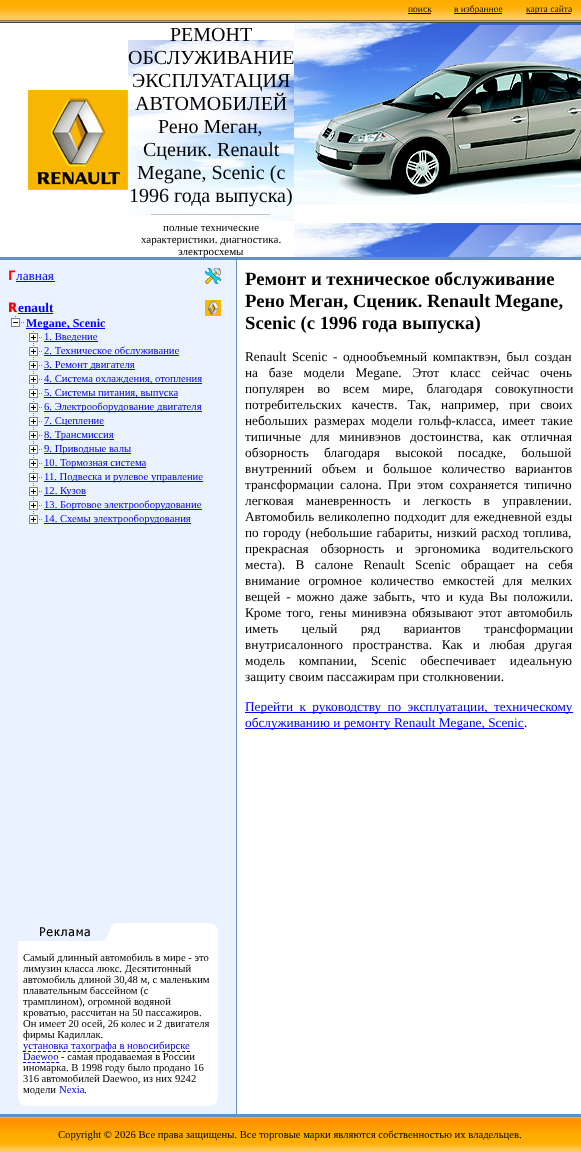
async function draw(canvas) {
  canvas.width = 581
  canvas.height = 1152
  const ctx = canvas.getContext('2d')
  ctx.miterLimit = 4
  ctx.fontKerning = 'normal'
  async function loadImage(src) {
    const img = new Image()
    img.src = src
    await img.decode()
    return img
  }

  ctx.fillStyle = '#fff'
  ctx.fillRect(0, 0, 581, 1152)
  ctx.drawImage(await loadImage('image0.png'), 0, 0, 581, 23)
  ctx.font = '9.5px Liberation Serif'
  ctx.fillStyle = '#0a0a0a'
  ctx.fillText('поиск', 408, 12)
  ctx.fillRect(408, 13, 23, 1)
  ctx.fillRect(454, 13, 48, 1)
  ctx.fillText('в избранное', 454, 12)
  ctx.fillRect(526, 13, 45, 1)
  ctx.fillText('карта сайта', 526, 12)
  ctx.drawImage(await loadImage('image1.png'), 28, 90, 100, 100)
  ctx.drawImage(await loadImage('image2.png'), 128, 40, 166, 181)
  ctx.font = '20px Liberation Serif'
  ctx.fillStyle = '#000'
  ctx.fillText('РЕМОНТ', 170, 41)
  ctx.fillText('ОБСЛУЖИВАНИЕ', 128, 64)
  ctx.fillText('ЭКСПЛУАТАЦИЯ', 132, 87)
  ctx.fillText('АВТОМОБИЛЕЙ', 135, 110)
  ctx.fillText('Рено Меган,', 158, 133)
  ctx.fillText('Сценик. Renault', 143, 156)
  ctx.fillText('Megane, Scenic (с', 137, 179)
  ctx.fillText('1996 года выпуска)', 129, 202)
  ctx.fillStyle = '#c0c0c0'
  ctx.fillRect(151, 214, 119, 1)
  ctx.font = '11px Liberation Serif'
  ctx.fillStyle = '#000'
  ctx.fillText('полные технические', 163, 231)
  ctx.fillText('характеристики. диагностика.', 141, 243)
  ctx.fillStyle = '#6590c5'
  ctx.fillRect(0, 257, 581, 3)
  ctx.fillStyle = '#000'
  ctx.fillText('электросхемы', 178, 255)
  ctx.drawImage(await loadImage('image3.png'), 294, 23, 287, 234)
  ctx.fillStyle = '#ebf2ff'
  ctx.fillRect(0, 260, 236, 854)
  ctx.drawImage(await loadImage('image4.png'), 205, 268, 16, 16)
  ctx.font = 'bold 13.3px Noto Sans'
  ctx.fillStyle = '#f00'
  ctx.fillText('Г', 8, 280)
  ctx.font = '13.3px Liberation Serif'
  ctx.fillStyle = '#00f'
  ctx.fillText('лавная', 16, 280)
  ctx.fillRect(16, 281, 39, 1)
  ctx.drawImage(await loadImage('image5.png'), 205, 300, 16, 16)
  ctx.font = '900 13.3px Noto Sans'
  ctx.fillStyle = '#f00'
  ctx.fillText('R', 8, 312)
  ctx.font = 'bold 13.3px Liberation Serif'
  ctx.fillStyle = '#00f'
  ctx.fillText('enault', 18, 312)
  ctx.fillRect(18, 313, 35, 1)
  ctx.drawImage(await loadImage('image6.png'), 11, 316, 13, 11)
  ctx.fillRect(26, 328, 79, 1)
  ctx.font = 'bold 12px Liberation Serif'
  ctx.fillText('Megane, Scenic', 26, 327)
  ctx.drawImage(await loadImage('image7.png'), 33, 331, 1, 13)
  ctx.drawImage(await loadImage('image8.png'), 29, 333, 13, 9)
  ctx.fillRect(44, 341, 54, 1)
  ctx.font = '10.65px Liberation Serif'
  ctx.fillText('1. Введение', 44, 340)
  ctx.drawImage(await loadImage('image7.png'), 33, 345, 1, 13)
  ctx.drawImage(await loadImage('image8.png'), 29, 347, 13, 9)
  ctx.fillRect(44, 355, 135, 1)
  ctx.fillText('2. Техническое обслуживание', 44, 354)
  ctx.drawImage(await loadImage('image7.png'), 33, 359, 1, 13)
  ctx.drawImage(await loadImage('image8.png'), 29, 361, 13, 9)
  ctx.fillRect(44, 369, 91, 1)
  ctx.fillText('3. Ремонт двигателя', 44, 368)
  ctx.drawImage(await loadImage('image7.png'), 33, 373, 1, 13)
  ctx.drawImage(await loadImage('image8.png'), 29, 375, 13, 9)
  ctx.fillRect(44, 383, 158, 1)
  ctx.fillText('4. Система охлаждения, отопления', 44, 382)
  ctx.drawImage(await loadImage('image7.png'), 33, 387, 1, 13)
  ctx.drawImage(await loadImage('image8.png'), 29, 389, 13, 9)
  ctx.fillRect(44, 397, 134, 1)
  ctx.fillText('5. Системы питания, выпуска', 44, 396)
  ctx.drawImage(await loadImage('image7.png'), 33, 401, 1, 13)
  ctx.drawImage(await loadImage('image8.png'), 29, 403, 13, 9)
  ctx.fillRect(44, 411, 158, 1)
  ctx.fillText('6. Электрооборудование двигателя', 44, 410)
  ctx.drawImage(await loadImage('image7.png'), 33, 415, 1, 13)
  ctx.drawImage(await loadImage('image8.png'), 29, 417, 13, 9)
  ctx.fillRect(44, 425, 60, 1)
  ctx.fillText('7. Сцепление', 44, 424)
  ctx.drawImage(await loadImage('image7.png'), 33, 429, 1, 13)
  ctx.drawImage(await loadImage('image8.png'), 29, 431, 13, 9)
  ctx.fillRect(44, 439, 70, 1)
  ctx.fillText('8. Трансмиссия', 44, 438)
  ctx.drawImage(await loadImage('image7.png'), 33, 443, 1, 13)
  ctx.drawImage(await loadImage('image8.png'), 29, 445, 13, 9)
  ctx.fillRect(44, 453, 87, 1)
  ctx.fillText('9. Приводные валы', 44, 452)
  ctx.drawImage(await loadImage('image7.png'), 33, 457, 1, 13)
  ctx.drawImage(await loadImage('image8.png'), 29, 459, 13, 9)
  ctx.fillRect(44, 467, 102, 1)
  ctx.fillText('10. Тормозная система', 44, 466)
  ctx.drawImage(await loadImage('image7.png'), 33, 471, 1, 13)
  ctx.drawImage(await loadImage('image8.png'), 29, 473, 13, 9)
  ctx.fillRect(44, 481, 159, 1)
  ctx.fillText('11. Подвеска и рулевое управление', 44, 480)
  ctx.drawImage(await loadImage('image7.png'), 33, 485, 1, 13)
  ctx.drawImage(await loadImage('image8.png'), 29, 487, 13, 9)
  ctx.fillRect(44, 495, 42, 1)
  ctx.fillText('12. Кузов', 44, 494)
  ctx.drawImage(await loadImage('image7.png'), 33, 499, 1, 13)
  ctx.drawImage(await loadImage('image8.png'), 29, 501, 13, 9)
  ctx.fillRect(44, 509, 158, 1)
  ctx.fillText('13. Бортовое электрооборудование', 44, 508)
  ctx.drawImage(await loadImage('image9.png'), 29, 513, 13, 11)
  ctx.fillRect(44, 523, 147, 1)
  ctx.fillText('14. Схемы электрооборудования', 44, 522)
  ctx.fillStyle = '#fff'
  ctx.fillRect(18, 941, 200, 154)
  ctx.drawImage(await loadImage('image10.png'), 18, 923, 200, 18)
  ctx.fillStyle = '#000'
  ctx.fillText('Самый длинный автомобиль в мире - это', 23, 961)
  ctx.fillText('лимузин класса люкс. Десятитонный', 23, 972)
  ctx.fillText('автомобиль длиной 30,48 м, с маленьким', 23, 983)
  ctx.fillText('плавательным бассейном (с', 23, 994)
  ctx.fillText('трамплином), огромной водяной', 23, 1005)
  ctx.fillText('кроватью, рассчитан на 50 пассажиров.', 23, 1016)
  ctx.fillText('Он имеет 20 осей, 26 колес и 2 двигателя', 23, 1027)
  ctx.fillText('фирмы Кадиллак.', 23, 1038)
  ctx.beginPath()
  ctx.moveTo(23, 1051.5)
  ctx.lineTo(190, 1051.5)
  ctx.strokeStyle = '#00c'
  ctx.setLineDash([3, 1.97])
  ctx.stroke()
  ctx.fillStyle = '#00c'
  ctx.fillText('установка тахографа в новосибирске', 23, 1049)
  ctx.fillText('Daewoo', 23, 1060)
  ctx.beginPath()
  ctx.moveTo(23, 1062.5)
  ctx.lineTo(59, 1062.5)
  ctx.setLineDash([3, 1.71])
  ctx.stroke()
  ctx.fillStyle = '#000'
  ctx.fillText('- самая продаваемая в России', 61, 1060)
  ctx.fillText('иномарка. В 1998 году было продано 16', 23, 1071)
  ctx.fillText('316 автомобилей Daewoo, из них 9242', 23, 1082)
  ctx.fillText('модели', 23, 1093)
  ctx.fillStyle = '#00c'
  ctx.fillText('Nexia', 59, 1093)
  ctx.fillStyle = '#000'
  ctx.fillText('.', 84, 1093)
  ctx.drawImage(await loadImage('image11.png'), 18, 1095, 200, 11)
  ctx.fillStyle = '#6590c5'
  ctx.fillRect(236, 260, 1, 854)
  ctx.font = 'bold 18.7px Liberation Serif'
  ctx.fillStyle = '#000'
  ctx.fillText('Ремонт и техническое обслуживание', 245, 285)
  ctx.fillText('Рено Меган, Сценик. Renault Megane,', 245, 307)
  ctx.fillText('Scenic (с 1996 года выпуска)', 245, 329)
  ctx.wordSpacing = '2.25px'
  ctx.font = '13.3px Liberation Serif'
  ctx.fillText('Renault Scenic - однообъемный компактвэн, был создан', 245, 361)
  ctx.wordSpacing = '7.5px'
  ctx.fillText('на базе модели Megane. Этот класс сейчас очень', 245, 377)
  ctx.wordSpacing = '9.5px'
  ctx.fillText('популярен во всем мире, благодаря совокупности', 245, 393)
  ctx.wordSpacing = '6.75px'
  ctx.fillText('потребительских качеств. Так, например, при своих', 245, 409)
  ctx.wordSpacing = '2.75px'
  ctx.fillText('небольших размерах модели гольф-класса, имеет такие', 245, 425)
  ctx.wordSpacing = '6px'
  ctx.fillText('типичные для минивэнов достоинства, как отличная', 245, 441)
  ctx.wordSpacing = '12px'
  ctx.fillText('обзорность благодаря высокой посадке, большой', 245, 457)
  ctx.wordSpacing = '6.5px'
  ctx.fillText('внутренний объем и большое количество вариантов', 245, 473)
  ctx.wordSpacing = '2.75px'
  ctx.fillText('трансформации салона. При этом сохраняется типично', 245, 489)
  ctx.wordSpacing = '9px'
  ctx.fillText('легковая маневренность и легкость в управлении.', 245, 505)
  ctx.wordSpacing = '0.75px'
  ctx.fillText('Автомобиль великолепно подходит для ежедневной езды', 245, 521)
  ctx.wordSpacing = '1px'
  ctx.fillText('по городу (небольшие габариты, низкий расход топлива,', 245, 537)
  ctx.wordSpacing = '8.5px'
  ctx.fillText('прекрасная обзорность и эргономика водительского', 245, 553)
  ctx.wordSpacing = '7px'
  ctx.fillText('места). В салоне Renault Scenic обращает на себя', 245, 569)
  ctx.wordSpacing = '5.25px'
  ctx.fillText('внимание огромное количество емкостей для мелких', 245, 585)
  ctx.wordSpacing = '2.5px'
  ctx.fillText('вещей - можно даже забыть, что и куда Вы положили.', 245, 601)
  ctx.wordSpacing = '2px'
  ctx.fillText('Кроме того, гены минивэна обязывают этот автомобиль', 245, 617)
  ctx.wordSpacing = '20px'
  ctx.fillText('иметь целый ряд вариантов трансформации', 245, 633)
  ctx.wordSpacing = '6.5px'
  ctx.fillText('внутрисалонного пространства. Как и любая другая', 245, 649)
  ctx.wordSpacing = '10.5px'
  ctx.fillText('модель компании, Scenic обеспечивает идеальную', 245, 665)
  ctx.wordSpacing = '0px'
  ctx.fillText('защиту своим пассажирам при столкновении.', 245, 681)
  ctx.fillStyle = '#00f'
  ctx.fillRect(245, 712, 328, 1)
  ctx.wordSpacing = '3px'
  ctx.fillText('Перейти к руководству по эксплуатации, техническому', 245, 711)
  ctx.fillRect(245, 728, 279, 1)
  ctx.wordSpacing = '0px'
  ctx.fillText('обслуживанию и ремонту Renault Megane, Scenic', 245, 727)
  ctx.fillStyle = '#000'
  ctx.fillText('.', 524, 727)
  ctx.fillStyle = '#6590c5'
  ctx.fillRect(0, 1114, 581, 3)
  ctx.drawImage(await loadImage('image12.png'), 0, 1117, 581, 35)
  ctx.font = '10.65px Liberation Serif'
  ctx.fillStyle = '#000'
  ctx.fillText('Copyright © 2026 Все права защищены. Все торговые марки являются собственностью их владельцев.', 58, 1138)
}

draw(document.querySelector('canvas'))
